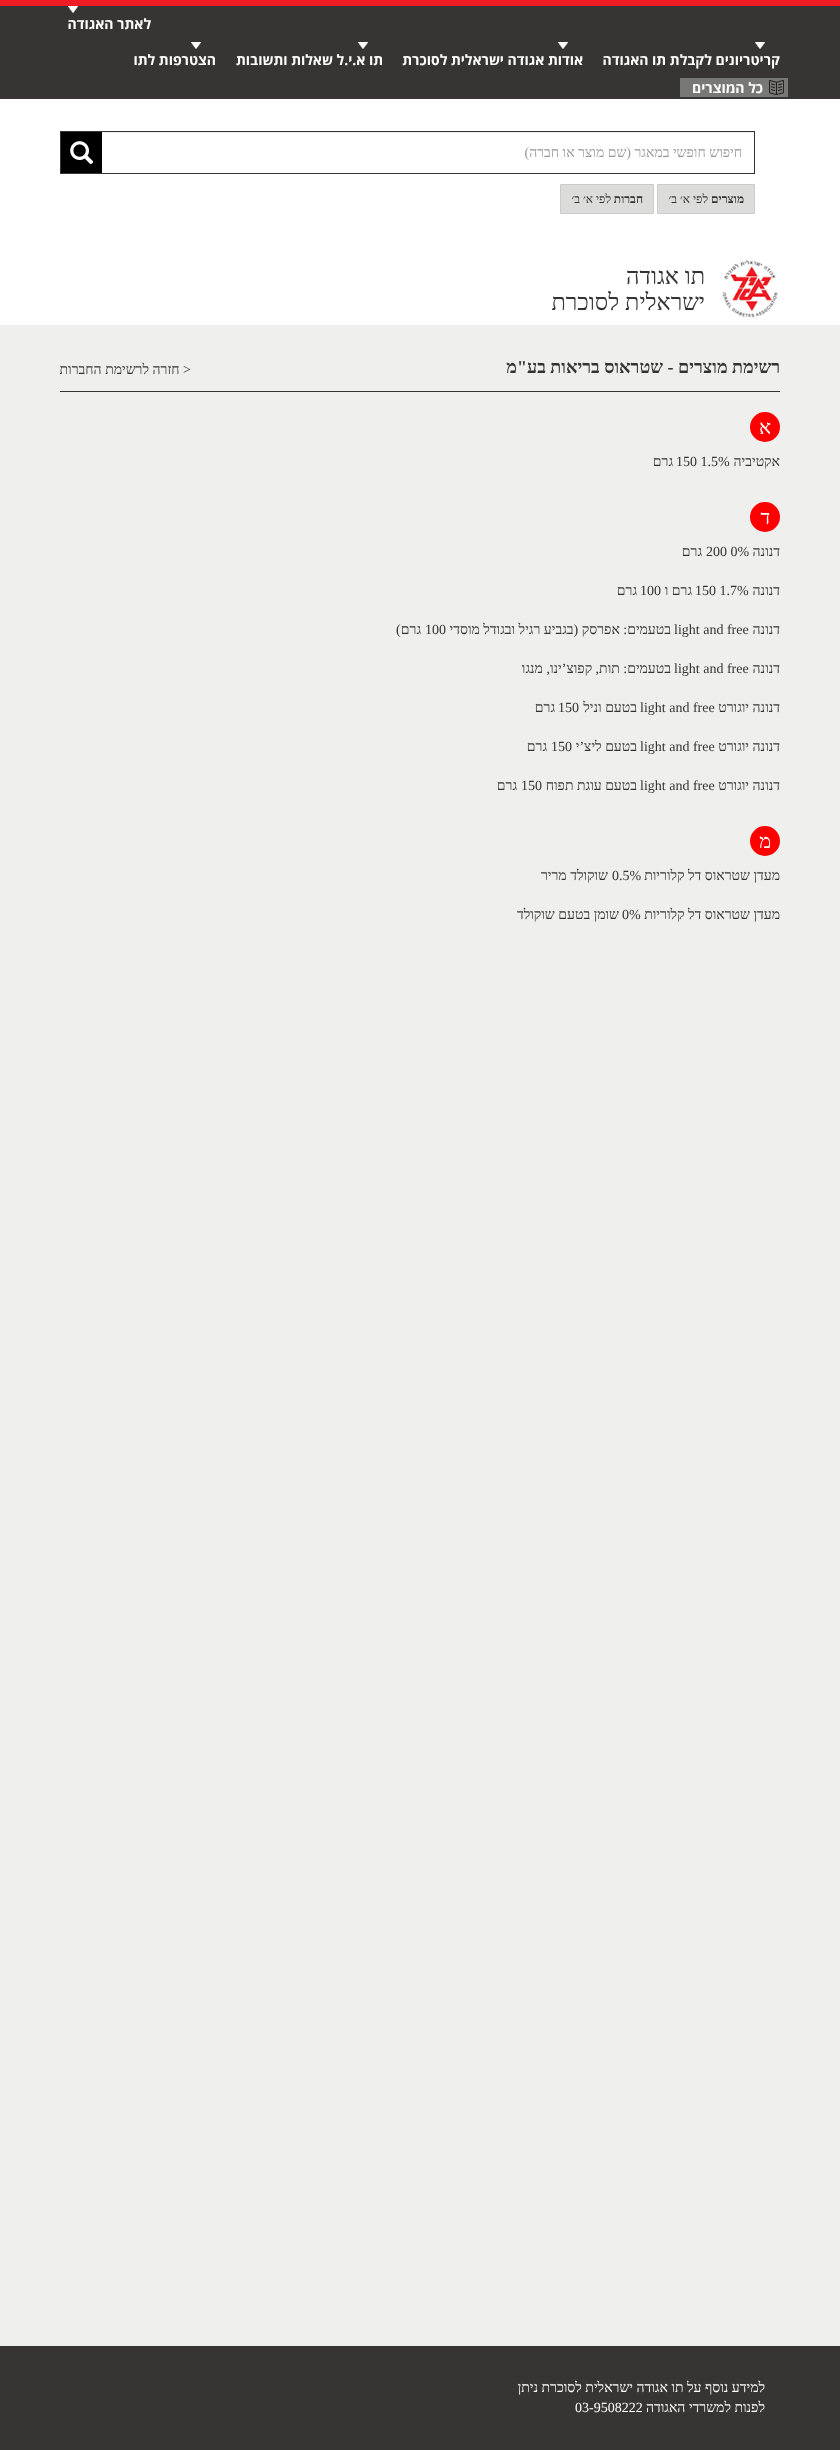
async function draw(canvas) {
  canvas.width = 840
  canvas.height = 2450
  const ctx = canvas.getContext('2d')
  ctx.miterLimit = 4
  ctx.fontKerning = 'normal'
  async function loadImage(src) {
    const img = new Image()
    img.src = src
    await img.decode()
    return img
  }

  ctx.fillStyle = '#efefed'
  ctx.fillRect(0, 0, 840, 2450)
  ctx.fillStyle = '#363534'
  ctx.fillRect(0, 6, 840, 93)
  ctx.fillStyle = '#ee1c25'
  ctx.fillRect(0, 0, 840, 6)
  ctx.drawImage(await loadImage('image0.png'), 68, 6, 10, 7)
  ctx.direction = 'rtl'
  ctx.font = 'bold 14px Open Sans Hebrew'
  ctx.fillStyle = '#fff'
  ctx.fillText('לאתר האגודה', 151, 29)
  ctx.drawImage(await loadImage('image0.png'), 755, 42, 10, 7)
  ctx.fillText('קריטריונים לקבלת תו האגודה', 780, 65)
  ctx.drawImage(await loadImage('image1.png'), 558, 42, 10, 7)
  ctx.fillText('אודות אגודה ישראלית לסוכרת', 583, 65)
  ctx.drawImage(await loadImage('image1.png'), 358, 42, 10, 7)
  ctx.fillText('תו א.י.ל שאלות ותשובות', 383, 65)
  ctx.drawImage(await loadImage('image0.png'), 191, 42, 10, 7)
  ctx.fillText('הצטרפות לתו', 216, 65)
  ctx.fillStyle = '#787877'
  ctx.fillRect(680, 78, 108, 19)
  ctx.drawImage(await loadImage('image2.png'), 769, 80, 15, 15)
  ctx.fillStyle = '#fff'
  ctx.fillText('כל המוצרים', 763, 93)
  ctx.fillRect(0, 99, 840, 226)
  ctx.fillStyle = '#ececec'
  ctx.fillRect(102, 132, 652, 1)
  ctx.strokeStyle = '#363534'
  ctx.strokeRect(60.5, 131.5, 694, 42)
  ctx.font = '14px Liberation Serif'
  ctx.fillStyle = '#999'
  ctx.fillText('חיפוש חופשי במאגר (שם מוצר או חברה)', 742, 157)
  ctx.fillStyle = '#000'
  ctx.fillRect(61, 132, 41, 41)
  ctx.drawImage(await loadImage('image3.png'), 70, 141, 24, 24)
  ctx.fillStyle = '#dcdcdb'
  ctx.beginPath()
  ctx.rect(657.5, 184.5, 97, 29)
  ctx.fill()
  ctx.strokeStyle = '#ccc'
  ctx.stroke()
  ctx.font = 'bold 12px Liberation Serif'
  ctx.fillStyle = '#333'
  ctx.fillText('מוצרים', 744, 203)
  ctx.font = '12px Liberation Serif'
  ctx.fillText('לפי א׳ ב׳', 708, 203)
  ctx.fillStyle = '#dcdcdb'
  ctx.beginPath()
  ctx.rect(560.5, 184.5, 93, 29)
  ctx.fill()
  ctx.stroke()
  ctx.font = 'bold 12px Liberation Serif'
  ctx.fillStyle = '#333'
  ctx.fillText('חברות', 643, 203)
  ctx.font = '12px Liberation Serif'
  ctx.fillText('לפי א׳ ב׳', 611, 203)
  ctx.drawImage(await loadImage('image4.png'), 722, 260, 56, 58)
  ctx.font = '23.5px Liberation Serif'
  ctx.fillText('תו אגודה', 705, 284)
  ctx.fillText('ישראלית לסוכרת', 705, 310)
  ctx.fillRect(60, 391, 720, 1)
  ctx.font = 'bold 18px Liberation Serif'
  ctx.fillText('רשימת מוצרים - שטראוס בריאות בע"מ', 780, 373)
  ctx.font = '14px Liberation Serif'
  ctx.fillText('< חזרה לרשימת החברות', 191, 374)
  ctx.fillStyle = '#f00'
  ctx.beginPath()
  ctx.arc(765, 427, 15, 0, 2 * Math.PI)
  ctx.fill()
  ctx.font = '20px Liberation Serif'
  ctx.fillStyle = '#fff'
  ctx.fillText('א', 771, 434)
  ctx.font = '14px Liberation Serif'
  ctx.fillStyle = '#333'
  ctx.fillText('אקטיביה', 780, 466)
  ctx.direction = 'ltr'
  ctx.fillText('150 1.5%', 676, 466)
  ctx.direction = 'rtl'
  ctx.fillText('גרם', 673, 466)
  ctx.fillStyle = '#f00'
  ctx.beginPath()
  ctx.arc(765, 517, 15, 0, 2 * Math.PI)
  ctx.fill()
  ctx.font = '20px Liberation Serif'
  ctx.fillStyle = '#fff'
  ctx.fillText('ד', 770, 524)
  ctx.font = '14px Liberation Serif'
  ctx.fillStyle = '#333'
  ctx.fillText('דנונה', 780, 556)
  ctx.direction = 'ltr'
  ctx.fillText('200 0%', 706, 556)
  ctx.direction = 'rtl'
  ctx.fillText('גרם', 702, 556)
  ctx.fillText('דנונה', 780, 595)
  ctx.direction = 'ltr'
  ctx.fillText('150 1.7%', 695, 595)
  ctx.direction = 'rtl'
  ctx.fillText('גרם ו', 692, 595)
  ctx.direction = 'ltr'
  ctx.fillText('100', 640, 595)
  ctx.direction = 'rtl'
  ctx.fillText('גרם', 637, 595)
  ctx.fillText('דנונה', 780, 634)
  ctx.direction = 'ltr'
  ctx.fillText('light and free', 674, 634)
  ctx.direction = 'rtl'
  ctx.fillText('בטעמים: אפרסק (בגביע רגיל ובגודל מוסדי', 671, 634)
  ctx.direction = 'ltr'
  ctx.fillText('100', 425, 634)
  ctx.direction = 'rtl'
  ctx.fillText('גרם)', 421, 634)
  ctx.fillText('דנונה', 780, 673)
  ctx.direction = 'ltr'
  ctx.fillText('light and free', 674, 673)
  ctx.direction = 'rtl'
  ctx.fillText('בטעמים: תות, קפוצ’ינו, מנגו', 671, 673)
  ctx.fillText('דנונה יוגורט', 780, 712)
  ctx.direction = 'ltr'
  ctx.fillText('light and free', 640, 712)
  ctx.direction = 'rtl'
  ctx.fillText('בטעם וניל', 637, 712)
  ctx.direction = 'ltr'
  ctx.fillText('150', 558, 712)
  ctx.direction = 'rtl'
  ctx.fillText('גרם', 555, 712)
  ctx.fillText('דנונה יוגורט', 780, 751)
  ctx.direction = 'ltr'
  ctx.fillText('light and free', 640, 751)
  ctx.direction = 'rtl'
  ctx.fillText('בטעם ליצ’י', 637, 751)
  ctx.direction = 'ltr'
  ctx.fillText('150', 551, 751)
  ctx.direction = 'rtl'
  ctx.fillText('גרם', 547, 751)
  ctx.fillText('דנונה יוגורט', 780, 790)
  ctx.direction = 'ltr'
  ctx.fillText('light and free', 640, 790)
  ctx.direction = 'rtl'
  ctx.fillText('בטעם עוגת תפוח', 637, 790)
  ctx.direction = 'ltr'
  ctx.fillText('150', 521, 790)
  ctx.direction = 'rtl'
  ctx.fillText('גרם', 517, 790)
  ctx.fillStyle = '#f00'
  ctx.beginPath()
  ctx.arc(765, 841, 15, 0, 2 * Math.PI)
  ctx.fill()
  ctx.font = '20px Liberation Serif'
  ctx.fillStyle = '#fff'
  ctx.fillText('מ', 771, 848)
  ctx.font = '14px Liberation Serif'
  ctx.fillStyle = '#333'
  ctx.fillText('מעדן שטראוס דל קלוריות', 780, 880)
  ctx.direction = 'ltr'
  ctx.fillText('0.5%', 612, 880)
  ctx.direction = 'rtl'
  ctx.fillText('שוקולד מריר', 608, 880)
  ctx.fillText('מעדן שטראוס דל קלוריות', 780, 919)
  ctx.direction = 'ltr'
  ctx.fillText('0%', 622, 919)
  ctx.direction = 'rtl'
  ctx.fillText('שומן בטעם שוקולד', 619, 919)
  ctx.fillStyle = '#363534'
  ctx.fillRect(0, 2346, 840, 104)
  ctx.fillStyle = '#fff'
  ctx.fillText('למידע נוסף על תו אגודה ישראלית לסוכרת ניתן', 765, 2392)
  ctx.fillText('לפנות למשרדי האגודה', 765, 2412)
  ctx.direction = 'ltr'
  ctx.fillText('03-9508222', 575, 2412)
}

draw(document.querySelector('canvas'))
